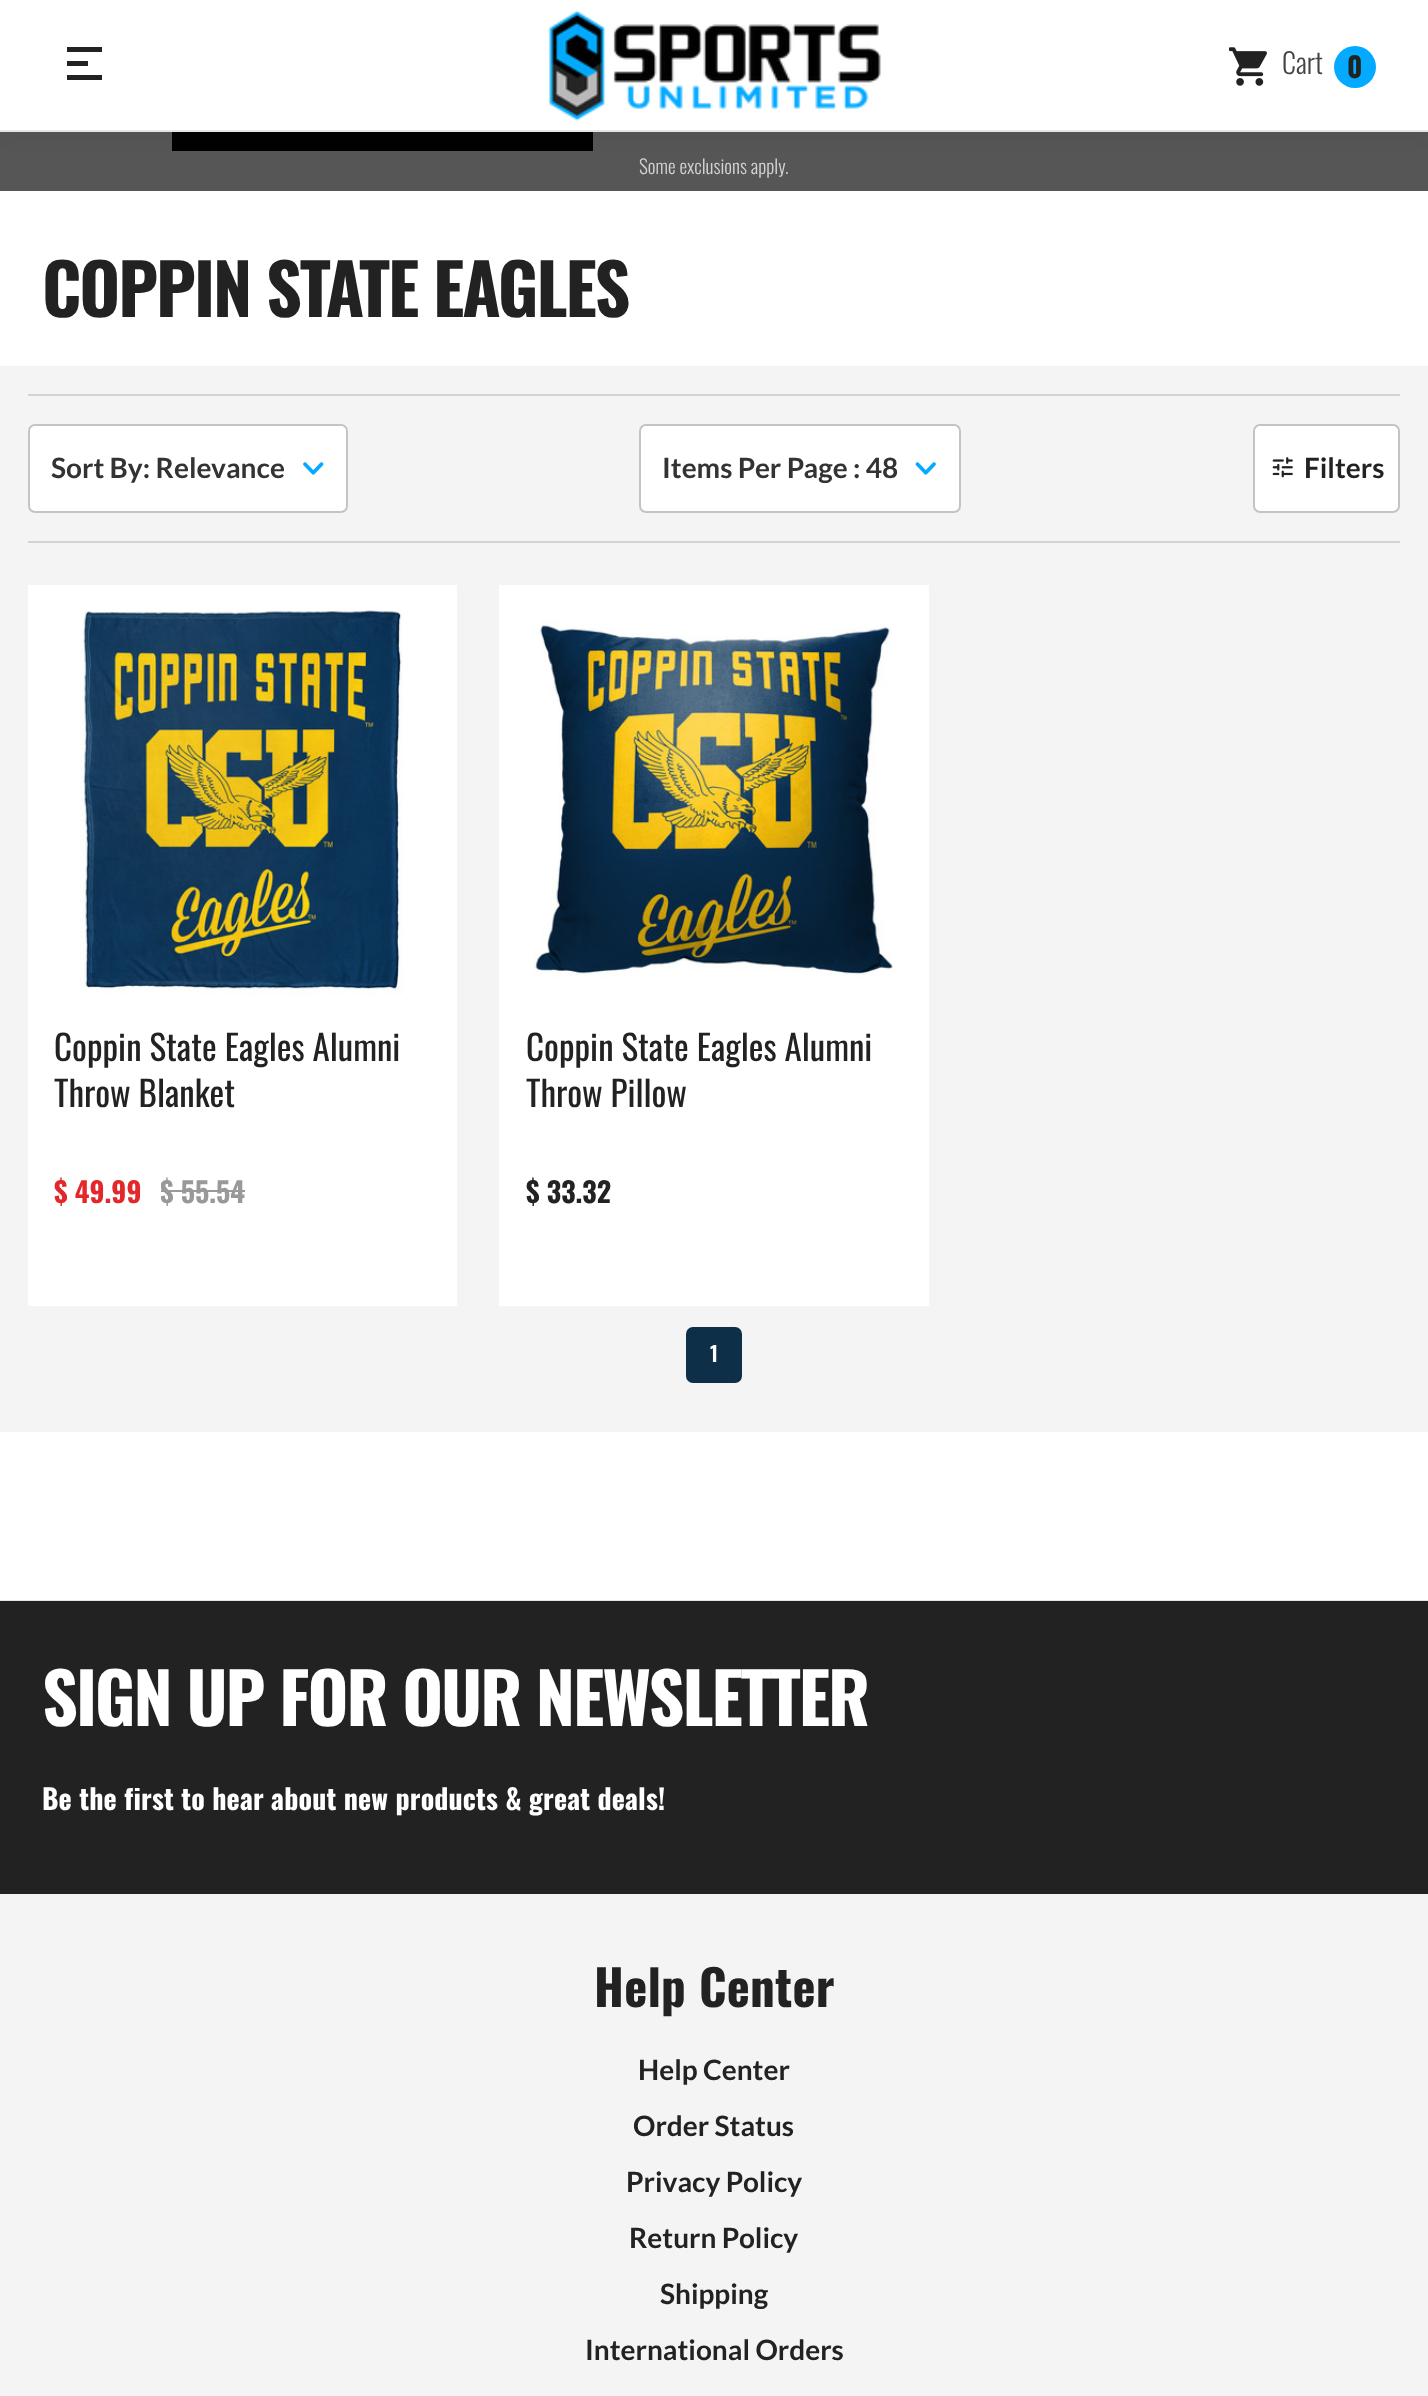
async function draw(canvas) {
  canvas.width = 1428
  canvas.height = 2396
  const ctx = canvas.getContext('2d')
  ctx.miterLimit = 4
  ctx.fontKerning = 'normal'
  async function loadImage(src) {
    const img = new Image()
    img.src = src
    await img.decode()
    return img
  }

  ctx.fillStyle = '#fff'
  ctx.fillRect(0, 0, 1428, 2396)
  ctx.fillStyle = '#565656'
  ctx.fillRect(0, 132, 1428, 59)
  ctx.fillStyle = '#000'
  ctx.fillRect(172, 132, 421, 19)
  ctx.fillStyle = '#2222220f'
  ctx.filter = 'blur(7px)'
  ctx.beginPath()
  ctx.rect(0, 7, 1428, 131)
  ctx.fill()
  ctx.filter = 'none'
  ctx.fillStyle = '#fff'
  ctx.fillRect(0, 1, 1428, 129)
  ctx.fillStyle = '#e5e5e5'
  ctx.fillRect(0, 130, 1428, 2)
  ctx.fillStyle = '#222'
  ctx.fillRect(67, 61, 21, 5)
  ctx.fillRect(67, 47, 35, 5)
  ctx.fillRect(67, 75, 35, 5)
  ctx.drawImage(await loadImage('image0.png'), 549, 10, 332, 111)
  ctx.drawImage(await loadImage('image1.png'), 1229, 47, 38, 39)
  ctx.font = '300 28px Oswald'
  ctx.fillStyle = '#444'
  ctx.fillText('Cart', 1282, 74)
  ctx.fillStyle = '#04aaff'
  ctx.beginPath()
  ctx.arc(1355, 67, 21, 0, 2 * Math.PI)
  ctx.fill()
  ctx.font = 'bold 28px Oswald'
  ctx.fillStyle = '#222'
  ctx.fillText('0', 1347, 78)
  ctx.font = '300 19.25px Oswald'
  ctx.fillStyle = '#d3d3d3'
  ctx.fillText('Some exclusions apply.', 639, 174)
  ctx.letterSpacing = '-2.1px'
  ctx.font = 'bold 70px Oswald'
  ctx.fillStyle = '#222'
  ctx.fillText('COPPIN STATE EAGLES', 42, 317)
  ctx.fillStyle = '#f4f4f4'
  ctx.fillRect(0, 366, 1428, 1066)
  ctx.fillStyle = '#d3d3d3'
  ctx.fillRect(28, 394, 1372, 2)
  ctx.fillRect(28, 541, 1372, 2)
  ctx.fillStyle = '#fff'
  ctx.beginPath()
  ctx.roundRect(29, 425, 318, 87, 6)
  ctx.fill()
  ctx.strokeStyle = '#c4c4c4'
  ctx.lineWidth = 2
  ctx.stroke()
  ctx.letterSpacing = '0px'
  ctx.font = 'bold 28px Lato'
  ctx.fillStyle = '#333'
  ctx.fillText('Sort By: Relevance', 51, 478)
  ctx.drawImage(await loadImage('image2.png'), 303, 462, 21, 13)
  ctx.fillStyle = '#fff'
  ctx.beginPath()
  ctx.roundRect(640, 425, 320, 87, 6)
  ctx.fill()
  ctx.stroke()
  ctx.fillStyle = '#333'
  ctx.fillText('Items Per Page : 48', 662, 478)
  ctx.drawImage(await loadImage('image3.png'), 915, 462, 21, 13)
  ctx.fillStyle = '#fff'
  ctx.beginPath()
  ctx.roundRect(1254, 425, 145, 87, 6)
  ctx.fill()
  ctx.stroke()
  ctx.drawImage(await loadImage('image4.png'), 1272, 457, 21, 21)
  ctx.fillStyle = '#222'
  ctx.fillText('Filters', 1304, 478)
  ctx.fillStyle = '#fff'
  ctx.fillRect(28, 585, 429, 721)
  ctx.drawImage(await loadImage('image5.png'), 79, 610, 324, 385)
  ctx.font = '35px Oswald'
  ctx.fillStyle = '#222'
  ctx.fillText('Coppin State Eagles Alumni', 54, 1061)
  ctx.fillText('Throw Blanket', 54, 1107)
  ctx.font = 'bold 28px Oswald'
  ctx.fillStyle = '#e4272a'
  ctx.fillText('$ 49.99', 54, 1203)
  ctx.save()
  ctx.beginPath()
  ctx.rect(161, 1171, 84, 42)
  ctx.clip()
  ctx.fillStyle = '#999'
  ctx.fillText('$ 55.54', 160, 1203)
  ctx.restore()
  ctx.fillStyle = '#999'
  ctx.fillRect(161, 1190, 84, 2)
  ctx.fillStyle = '#fff'
  ctx.fillRect(499, 585, 430, 721)
  ctx.drawImage(await loadImage('image6.png'), 533, 619, 360, 358)
  ctx.font = '35px Oswald'
  ctx.fillStyle = '#222'
  ctx.fillText('Coppin State Eagles Alumni', 526, 1061)
  ctx.fillText('Throw Pillow', 526, 1107)
  ctx.font = 'bold 28px Oswald'
  ctx.fillText('$ 33.32', 526, 1203)
  ctx.fillStyle = '#0d2f47'
  ctx.beginPath()
  ctx.roundRect(687, 1328, 54, 54, 6)
  ctx.fill()
  ctx.strokeStyle = '#0d2f47'
  ctx.stroke()
  ctx.font = '600 21px Oswald'
  ctx.fillStyle = '#fff'
  ctx.fillText('1', 710, 1362)
  ctx.fillStyle = '#f4f4f4'
  ctx.fillRect(0, 1894, 1428, 502)
  ctx.fillStyle = '#e5e5e5'
  ctx.fillRect(0, 1600, 1428, 1)
  ctx.fillStyle = '#222'
  ctx.fillRect(0, 1601, 1428, 293)
  ctx.letterSpacing = '-2.1px'
  ctx.font = 'bold 70px Oswald'
  ctx.fillStyle = '#fff'
  ctx.fillText('SIGN UP FOR OUR NEWSLETTER', 42, 1726)
  ctx.letterSpacing = '0.15px'
  ctx.font = 'bold 28px Oswald'
  ctx.fillText('Be the first to hear about new products & great deals!', 42, 1810)
  ctx.letterSpacing = '0.25px'
  ctx.font = 'bold 49px Oswald'
  ctx.fillStyle = '#222'
  ctx.fillText('Help Center', 594, 2007)
  ctx.letterSpacing = '0px'
  ctx.font = 'bold 28px Lato'
  ctx.fillText('Help Center', 638, 2080)
  ctx.fillText('Order Status', 633, 2136)
  ctx.fillText('Privacy Policy', 626, 2192)
  ctx.fillText('Return Policy', 629, 2248)
  ctx.fillText('Shipping', 660, 2304)
  ctx.fillText('International Orders', 585, 2360)
}

draw(document.querySelector('canvas'))
